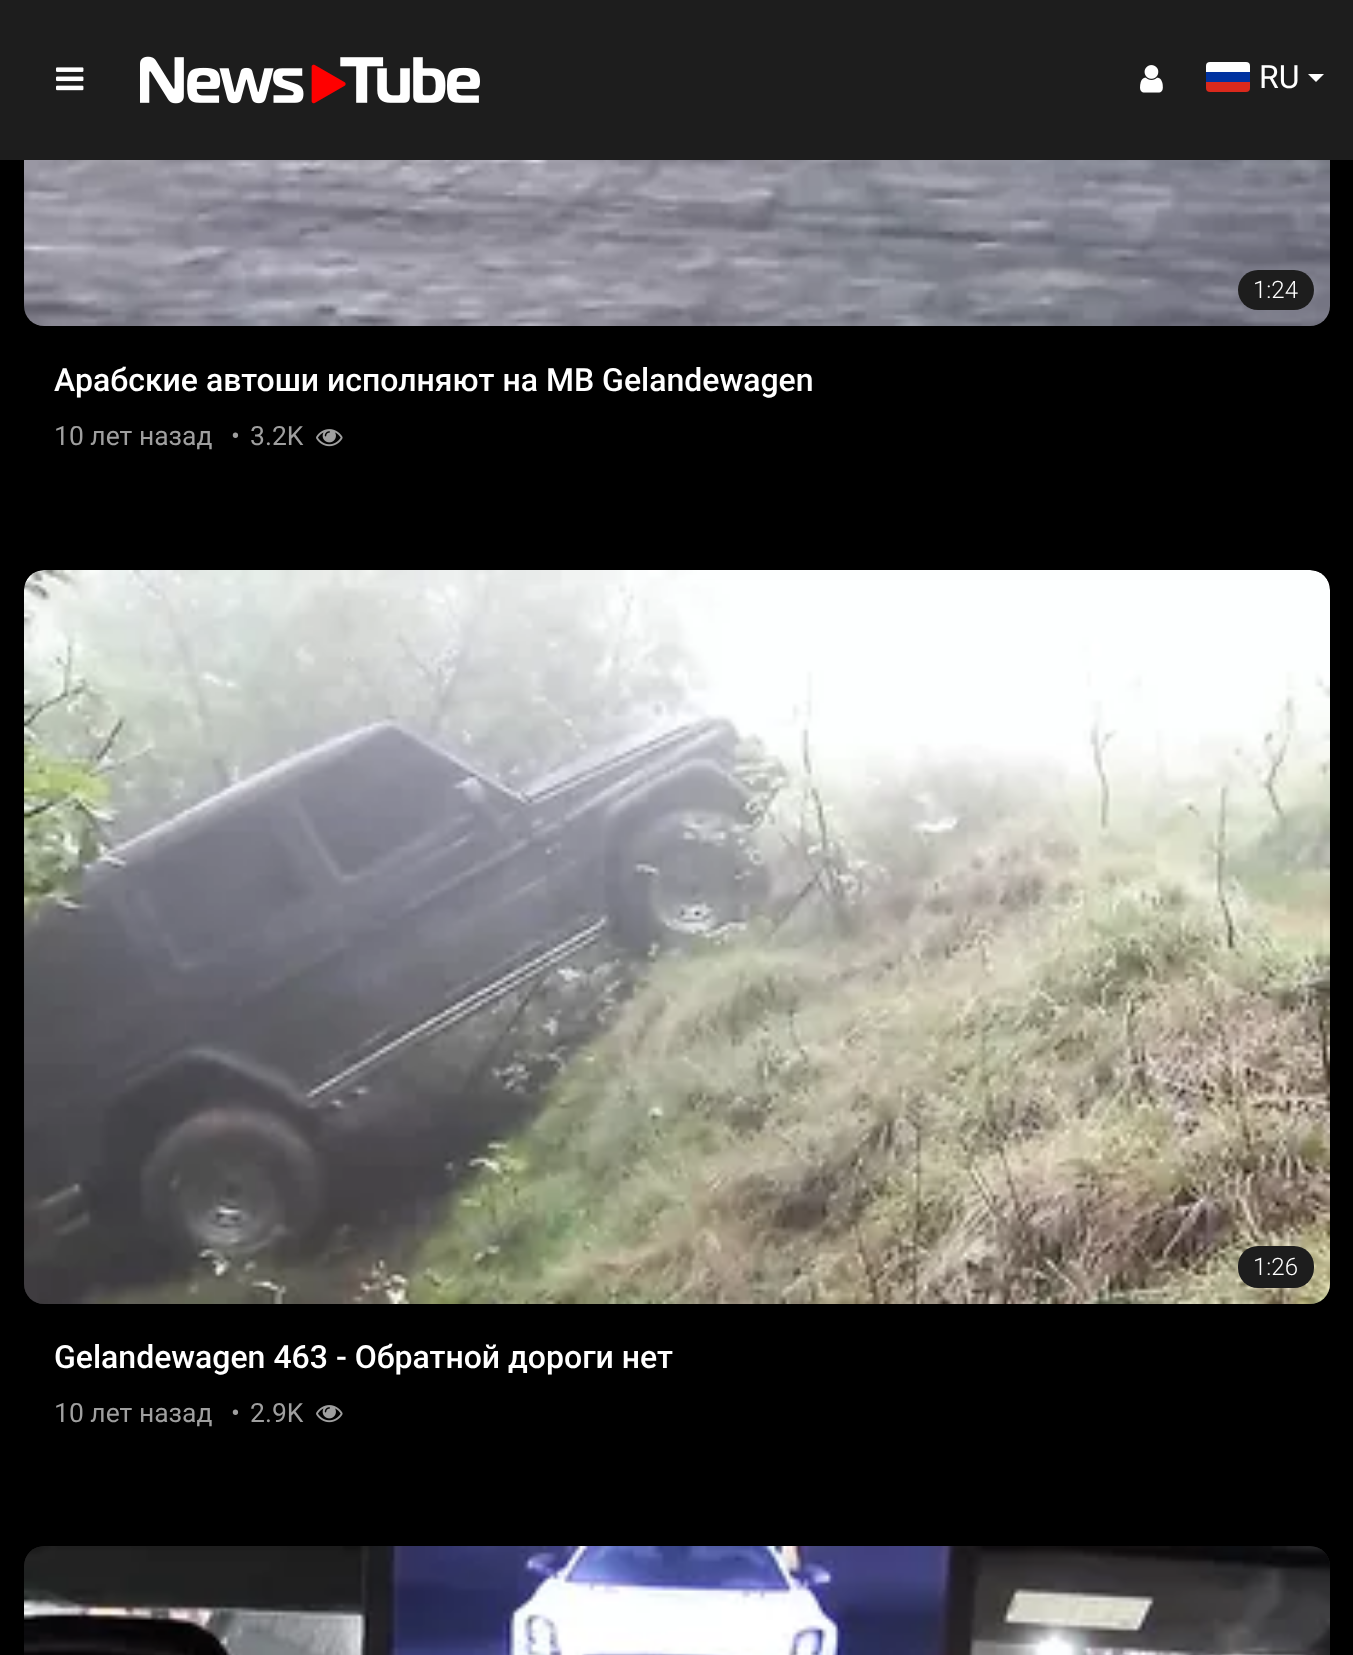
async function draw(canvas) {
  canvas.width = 1353
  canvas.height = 1655
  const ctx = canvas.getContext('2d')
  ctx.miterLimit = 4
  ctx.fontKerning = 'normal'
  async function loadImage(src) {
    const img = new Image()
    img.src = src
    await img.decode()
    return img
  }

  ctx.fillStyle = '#000'
  ctx.fillRect(0, 0, 1353, 1655)
  ctx.fillStyle = '#1d1d1d'
  ctx.fillRect(0, 0, 1353, 160)
  ctx.drawImage(await loadImage('image0.png'), 56, 67, 28, 24)
  ctx.drawImage(await loadImage('image1.png'), 140, 56, 340, 48)
  ctx.drawImage(await loadImage('image2.png'), 1140, 65, 23, 28)
  ctx.fillStyle = '#da291c'
  ctx.beginPath()
  ctx.roundRect(1206, 82, 44, 10, [0, 0, 4, 4])
  ctx.fill()
  ctx.fillStyle = '#0032a0'
  ctx.fillRect(1206, 72, 44, 10)
  ctx.fillStyle = '#fff'
  ctx.beginPath()
  ctx.roundRect(1206, 62, 44, 10, [4, 4, 0, 0])
  ctx.fill()
  ctx.font = '32px Roboto'
  ctx.fillText('RU', 1259, 88)
  ctx.beginPath()
  ctx.moveTo(1308, 74)
  ctx.lineTo(1324, 74)
  ctx.lineTo(1316, 82)
  ctx.closePath()
  ctx.fill()
  ctx.drawImage(await loadImage('image3.png'), 24, 160, 1306, 166)
  ctx.fillStyle = '#1d1d1d'
  ctx.beginPath()
  ctx.roundRect(1238, 270, 76, 40, 20)
  ctx.fill()
  ctx.font = '300 24px Roboto'
  ctx.fillStyle = '#fff'
  ctx.fillText('1:24', 1253, 298)
  ctx.font = '500 32px Roboto'
  ctx.fillText('Арабские автоши исполняют на MB Gelandewagen', 54, 391)
  ctx.font = '26.5px Roboto'
  ctx.fillStyle = '#9f9f9f'
  ctx.fillText('10 лет назад', 54, 445)
  ctx.fillText('•', 231, 445)
  ctx.fillText('3.2K', 250, 445)
  ctx.drawImage(await loadImage('image4.png'), 316, 429, 27, 18)
  ctx.fillStyle = '#1d1d1d'
  ctx.beginPath()
  ctx.roundRect(24, 570, 1306, 734, 20)
  ctx.fill()
  ctx.drawImage(await loadImage('image5.png'), 24, 570, 1306, 734)
  ctx.beginPath()
  ctx.roundRect(1238, 1246, 76, 42, 20)
  ctx.fill()
  ctx.font = '300 24px Roboto'
  ctx.fillStyle = '#fff'
  ctx.fillText('1:26', 1253, 1275)
  ctx.font = '500 32px Roboto'
  ctx.fillText('Gelandewagen 463 - Обратной дороги нет', 54, 1368)
  ctx.font = '26.5px Roboto'
  ctx.fillStyle = '#9f9f9f'
  ctx.fillText('10 лет назад', 54, 1422)
  ctx.fillText('•', 231, 1422)
  ctx.fillText('2.9K', 250, 1422)
  ctx.drawImage(await loadImage('image4.png'), 316, 1405, 27, 18)
  ctx.fillStyle = '#1d1d1d'
  ctx.beginPath()
  ctx.roundRect(24, 1546, 1306, 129, 20)
  ctx.fill()
  ctx.drawImage(await loadImage('image6.png'), 24, 1546, 1306, 109)
}

draw(document.querySelector('canvas'))
